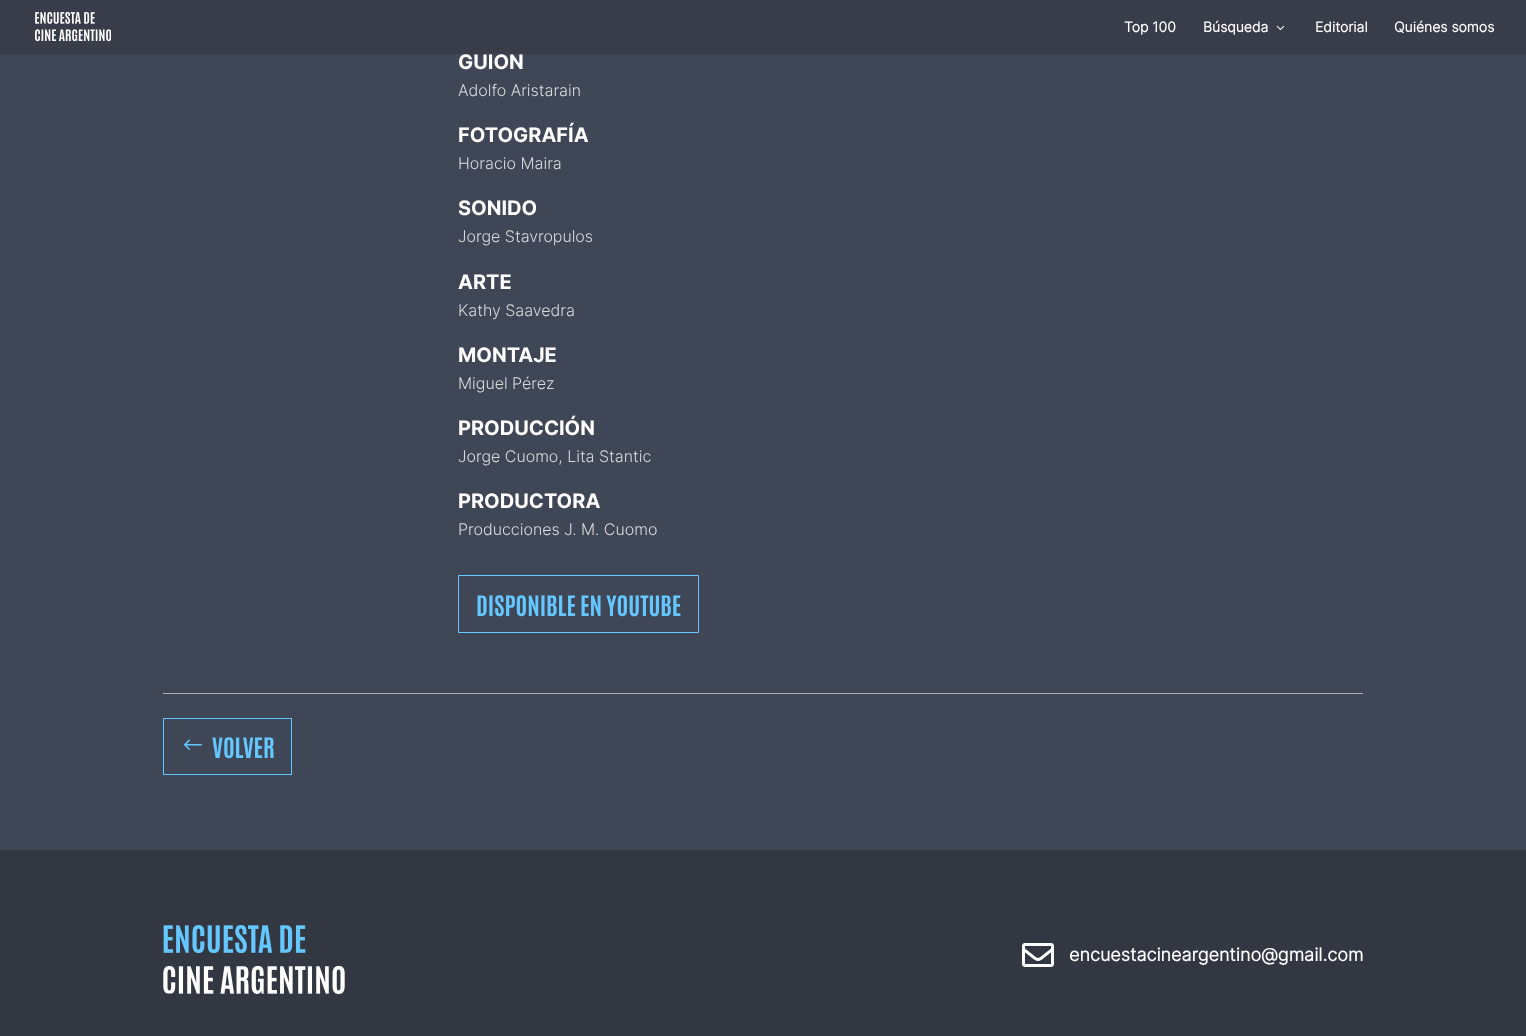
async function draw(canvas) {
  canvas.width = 1526
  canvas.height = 1036
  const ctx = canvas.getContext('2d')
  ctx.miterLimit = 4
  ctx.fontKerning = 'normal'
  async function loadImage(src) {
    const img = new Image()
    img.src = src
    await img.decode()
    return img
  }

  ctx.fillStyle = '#3f4655'
  ctx.fillRect(0, 0, 1526, 1036)
  ctx.fillStyle = '#383d49'
  ctx.fillRect(0, 0, 1526, 54)
  ctx.drawImage(await loadImage('image0.png'), 35, 12, 76, 30)
  ctx.font = 'bold 14px "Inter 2"'
  ctx.fillStyle = '#fff'
  ctx.fillText('Top 100', 1124, 32)
  ctx.fillText('Búsqueda', 1203, 32)
  ctx.drawImage(await loadImage('image1.png'), 1276, 25, 9, 5)
  ctx.fillText('Editorial', 1315, 32)
  ctx.fillText('Quiénes somos', 1394, 32)
  ctx.font = 'bold 20px Inter'
  ctx.fillText('GUION', 458, 69)
  ctx.font = '300 16px Inter'
  ctx.fillStyle = '#d9dadd'
  ctx.fillText('Adolfo Aristarain', 458, 96)
  ctx.font = 'bold 20px Inter'
  ctx.fillStyle = '#fff'
  ctx.fillText('FOTOGRAFÍA', 458, 142)
  ctx.font = '300 16px Inter'
  ctx.fillStyle = '#d9dadd'
  ctx.fillText('Horacio Maira', 458, 169)
  ctx.font = 'bold 20px Inter'
  ctx.fillStyle = '#fff'
  ctx.fillText('SONIDO', 458, 215)
  ctx.font = '300 16px Inter'
  ctx.fillStyle = '#d9dadd'
  ctx.fillText('Jorge Stavropulos', 458, 242)
  ctx.font = 'bold 20px Inter'
  ctx.fillStyle = '#fff'
  ctx.fillText('ARTE', 458, 289)
  ctx.font = '300 16px Inter'
  ctx.fillStyle = '#d9dadd'
  ctx.fillText('Kathy Saavedra', 458, 316)
  ctx.font = 'bold 20px Inter'
  ctx.fillStyle = '#fff'
  ctx.fillText('MONTAJE', 458, 362)
  ctx.font = '300 16px Inter'
  ctx.fillStyle = '#d9dadd'
  ctx.fillText('Miguel Pérez', 458, 389)
  ctx.font = 'bold 20px Inter'
  ctx.fillStyle = '#fff'
  ctx.fillText('PRODUCCIÓN', 458, 435)
  ctx.font = '300 16px Inter'
  ctx.fillStyle = '#d9dadd'
  ctx.fillText('Jorge Cuomo, Lita Stantic', 458, 462)
  ctx.font = 'bold 20px Inter'
  ctx.fillStyle = '#fff'
  ctx.fillText('PRODUCTORA', 458, 508)
  ctx.font = '300 16px Inter'
  ctx.fillStyle = '#d9dadd'
  ctx.fillText('Producciones J. M. Cuomo', 458, 535)
  ctx.strokeStyle = '#65c7ff'
  ctx.strokeRect(458.5, 575.5, 240, 57)
  ctx.font = 'bold 24px Antonio'
  ctx.fillStyle = '#65c7ff'
  ctx.fillText('DISPONIBLE EN YOUTUBE', 476, 616)
  ctx.fillStyle = '#afafaf'
  ctx.fillRect(163, 693, 1200, 1)
  ctx.strokeRect(163.5, 718.5, 128, 56)
  ctx.drawImage(await loadImage('image2.png'), 184, 739, 18, 11)
  ctx.fillStyle = '#65c7ff'
  ctx.fillText('VOLVER', 212, 758)
  ctx.fillStyle = '#323742'
  ctx.fillRect(0, 850, 1526, 186)
  ctx.drawImage(await loadImage('image3.png'), 163, 925, 182, 69)
  ctx.drawImage(await loadImage('image4.png'), 1022, 943, 32, 24)
  ctx.font = 'bold 18px "Inter 2"'
  ctx.fillStyle = '#fff'
  ctx.fillText('encuestacineargentino@gmail.com', 1069, 961)
}

draw(document.querySelector('canvas'))
